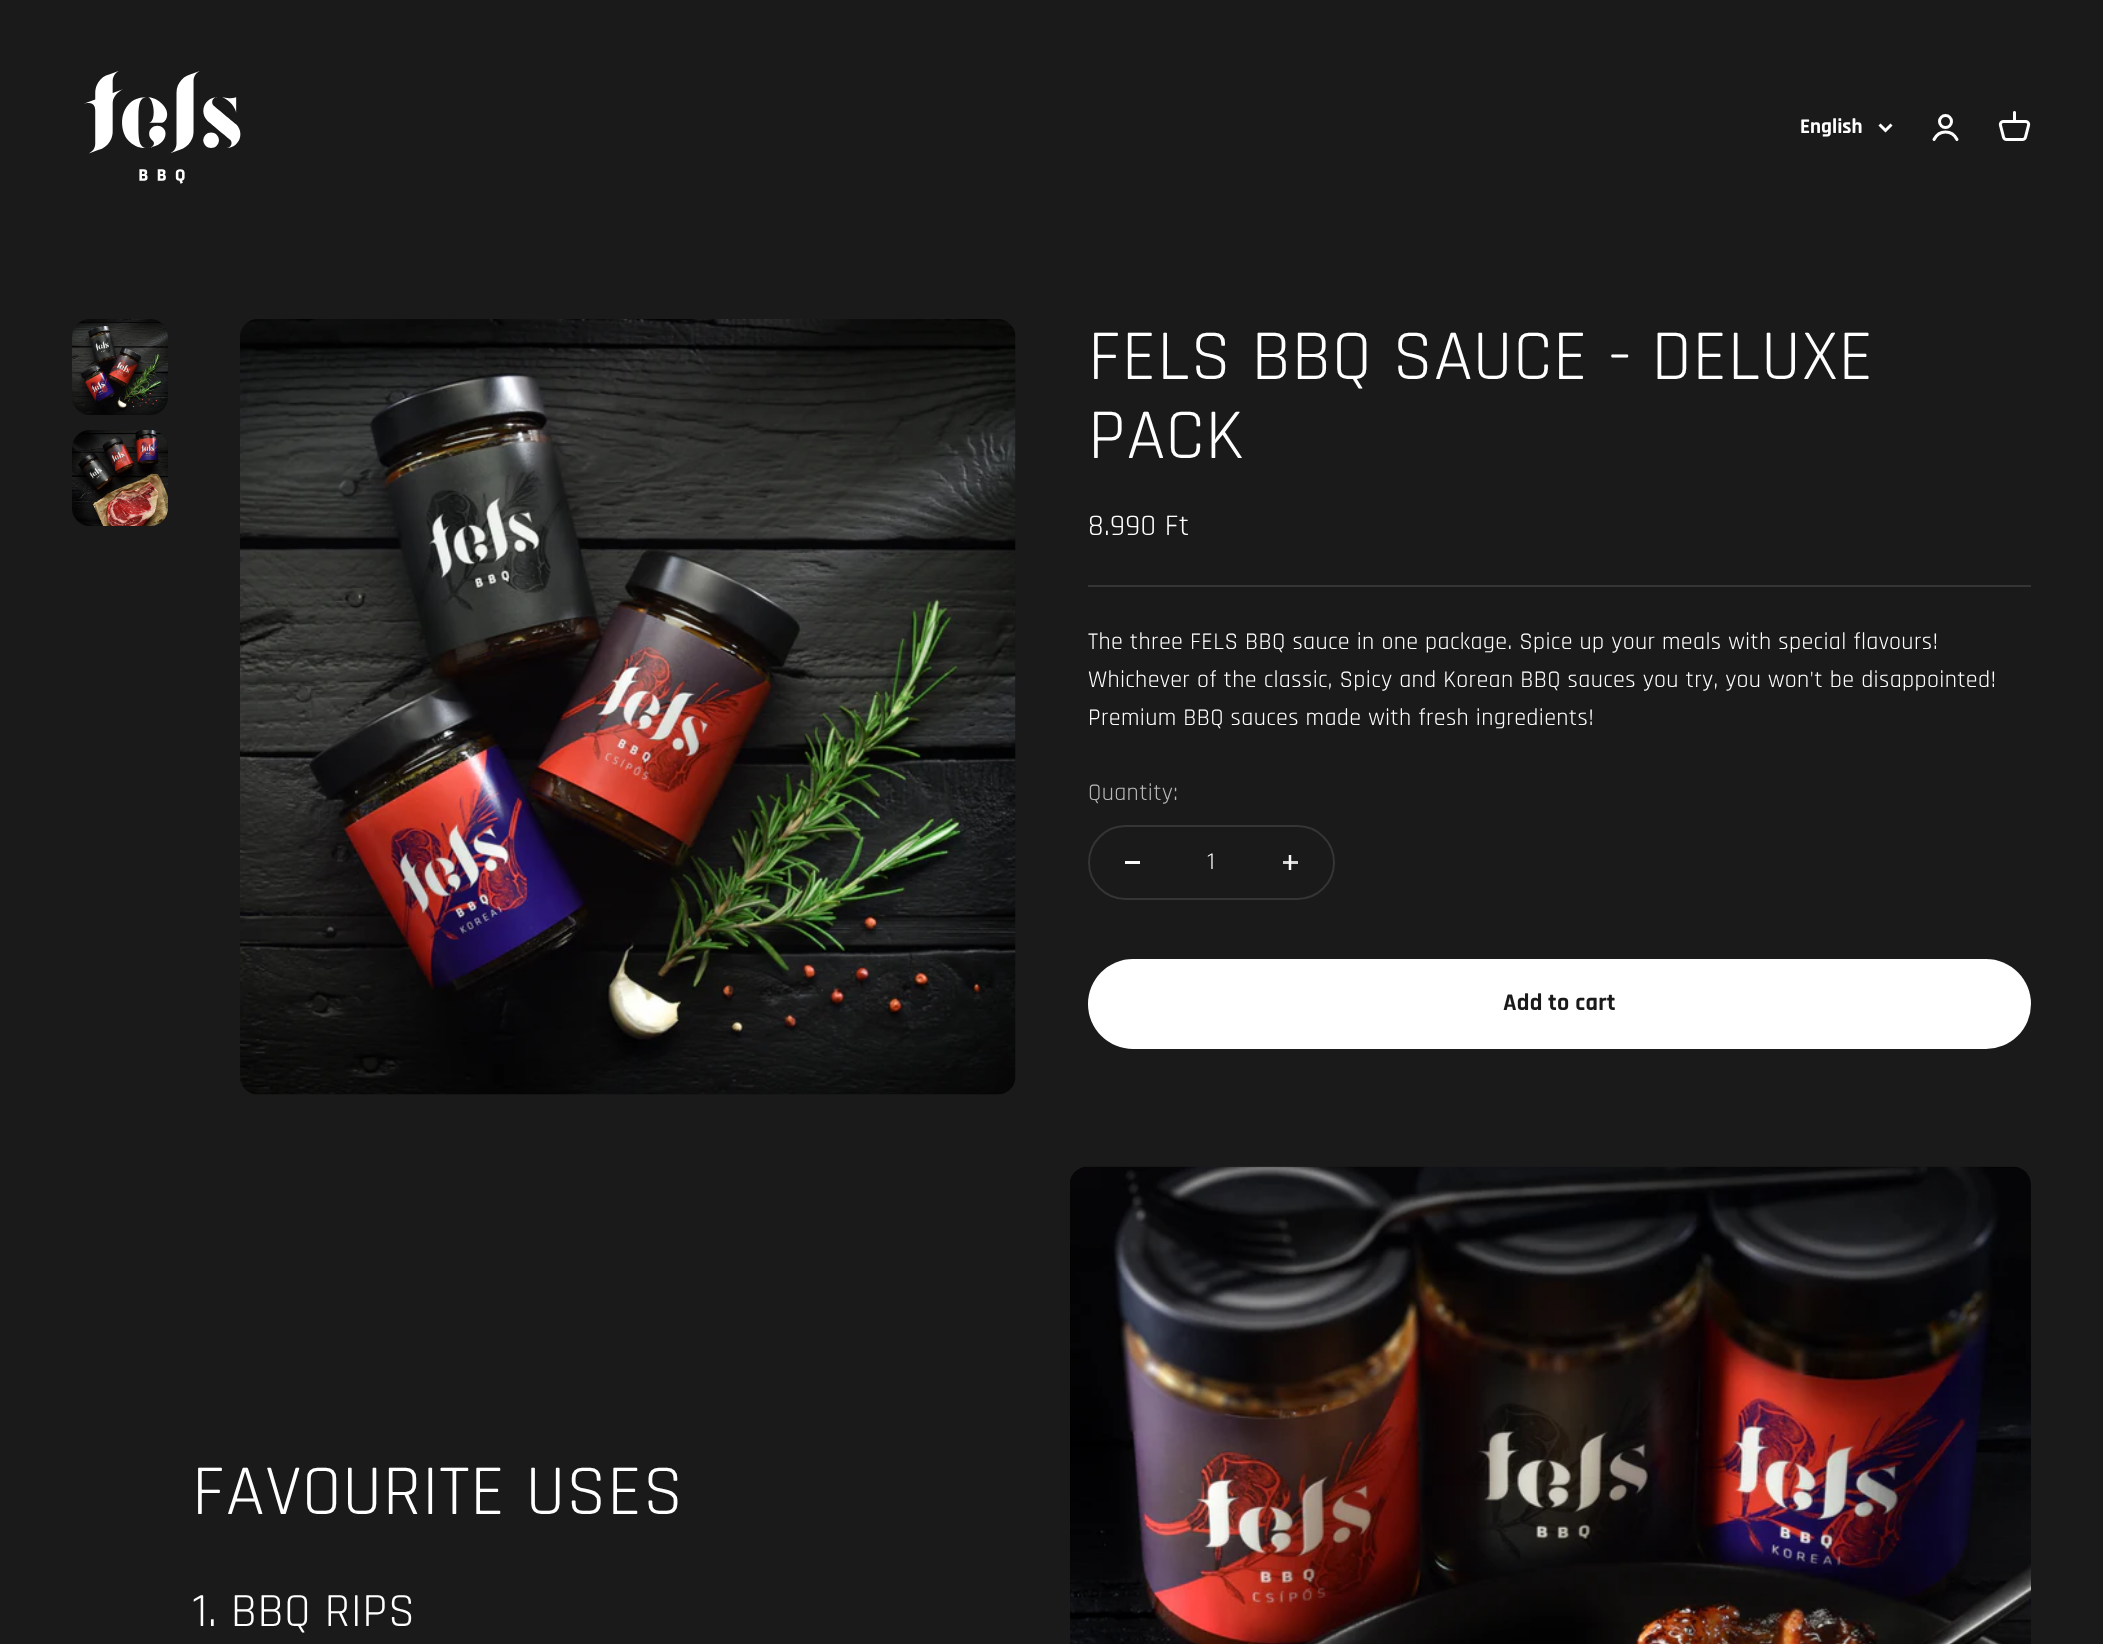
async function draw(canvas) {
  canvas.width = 2103
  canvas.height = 1644
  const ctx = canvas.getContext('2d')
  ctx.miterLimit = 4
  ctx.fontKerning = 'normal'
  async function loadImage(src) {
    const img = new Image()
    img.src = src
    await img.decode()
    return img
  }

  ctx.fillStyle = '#1a1a1a'
  ctx.fillRect(0, 0, 2103, 1644)
  ctx.drawImage(await loadImage('image0.png'), 84, 70, 157, 114)
  ctx.font = 'bold 21px Rajdhani'
  ctx.fillStyle = '#fff'
  ctx.fillText('English', 1800, 133)
  ctx.beginPath()
  ctx.moveTo(1879.5, 124.5)
  ctx.lineTo(1885.5, 130.5)
  ctx.lineTo(1891.5, 124.5)
  ctx.strokeStyle = '#fff'
  ctx.lineWidth = 3
  ctx.stroke()
  ctx.beginPath()
  ctx.arc(1945.5, 121.5, 6, 0, 2 * Math.PI)
  ctx.stroke()
  ctx.beginPath()
  ctx.moveTo(1934, 139.5)
  ctx.bezierCurveTo(1939, 129.5, 1952, 129.5, 1957, 139.5)
  ctx.lineCap = 'round'
  ctx.stroke()
  ctx.drawImage(await loadImage('image1.png'), 1998, 111, 33, 30)
  ctx.drawImage(await loadImage('image2.png'), 72, 319, 96, 96)
  ctx.drawImage(await loadImage('image3.png'), 72, 430, 96, 96)
  ctx.drawImage(await loadImage('image4.png'), 240, 319, 776, 776)
  ctx.letterSpacing = '0.75px'
  ctx.font = '72px Rajdhani'
  ctx.fillText('FELS BBQ SAUCE - DELUXE', 1088, 379)
  ctx.fillText('PACK', 1088, 458)
  ctx.letterSpacing = '0.35px'
  ctx.font = '30px Rajdhani'
  ctx.fillText('8.990 Ft', 1088, 535)
  ctx.fillStyle = '#353535'
  ctx.fillRect(1088, 585, 943, 2)
  ctx.font = '24px Rajdhani'
  ctx.fillStyle = '#fff'
  ctx.fillText('The three FELS BBQ sauce in one package. Spice up your meals with special flavours!', 1088, 649)
  ctx.fillText('Whichever of the classic, Spicy and Korean BBQ sauces you try, you won\'t be disappointed!', 1088, 687)
  ctx.fillText('Premium BBQ sauces made with fresh ingredients!', 1088, 725)
  ctx.fillStyle = '#b7b7b7'
  ctx.fillText('Quantity:', 1088, 800)
  ctx.beginPath()
  ctx.roundRect(1089, 826, 245, 73, 36.5)
  ctx.strokeStyle = '#353535'
  ctx.lineWidth = 2
  ctx.stroke()
  ctx.fillStyle = '#fafafa'
  ctx.fillRect(1125, 861, 15, 3)
  ctx.letterSpacing = '0px'
  ctx.fillStyle = '#fff'
  ctx.fillText('1', 1207, 869)
  ctx.beginPath()
  ctx.moveTo(1290, 855)
  ctx.lineTo(1290, 870)
  ctx.strokeStyle = '#fafafa'
  ctx.lineWidth = 2.5
  ctx.lineCap = 'butt'
  ctx.stroke()
  ctx.fillStyle = '#fafafad4'
  ctx.fillRect(1283, 861, 15, 3)
  ctx.fillStyle = '#fff'
  ctx.beginPath()
  ctx.roundRect(1088, 959, 943, 90, 45)
  ctx.fill()
  ctx.letterSpacing = '0.35px'
  ctx.font = 'bold 24px Rajdhani'
  ctx.fillStyle = '#1a1a1a'
  ctx.fillText('Add to cart', 1503, 1010)
  ctx.letterSpacing = '0.75px'
  ctx.font = '72px Rajdhani'
  ctx.fillStyle = '#fff'
  ctx.fillText('FAVOURITE USES', 192, 1514)
  ctx.letterSpacing = '0.5px'
  ctx.font = '48px Rajdhani'
  ctx.fillText('1. BBQ RIPS', 192, 1626)
  ctx.drawImage(await loadImage('image5.png'), 1070, 1166, 961, 478)
}

draw(document.querySelector('canvas'))
